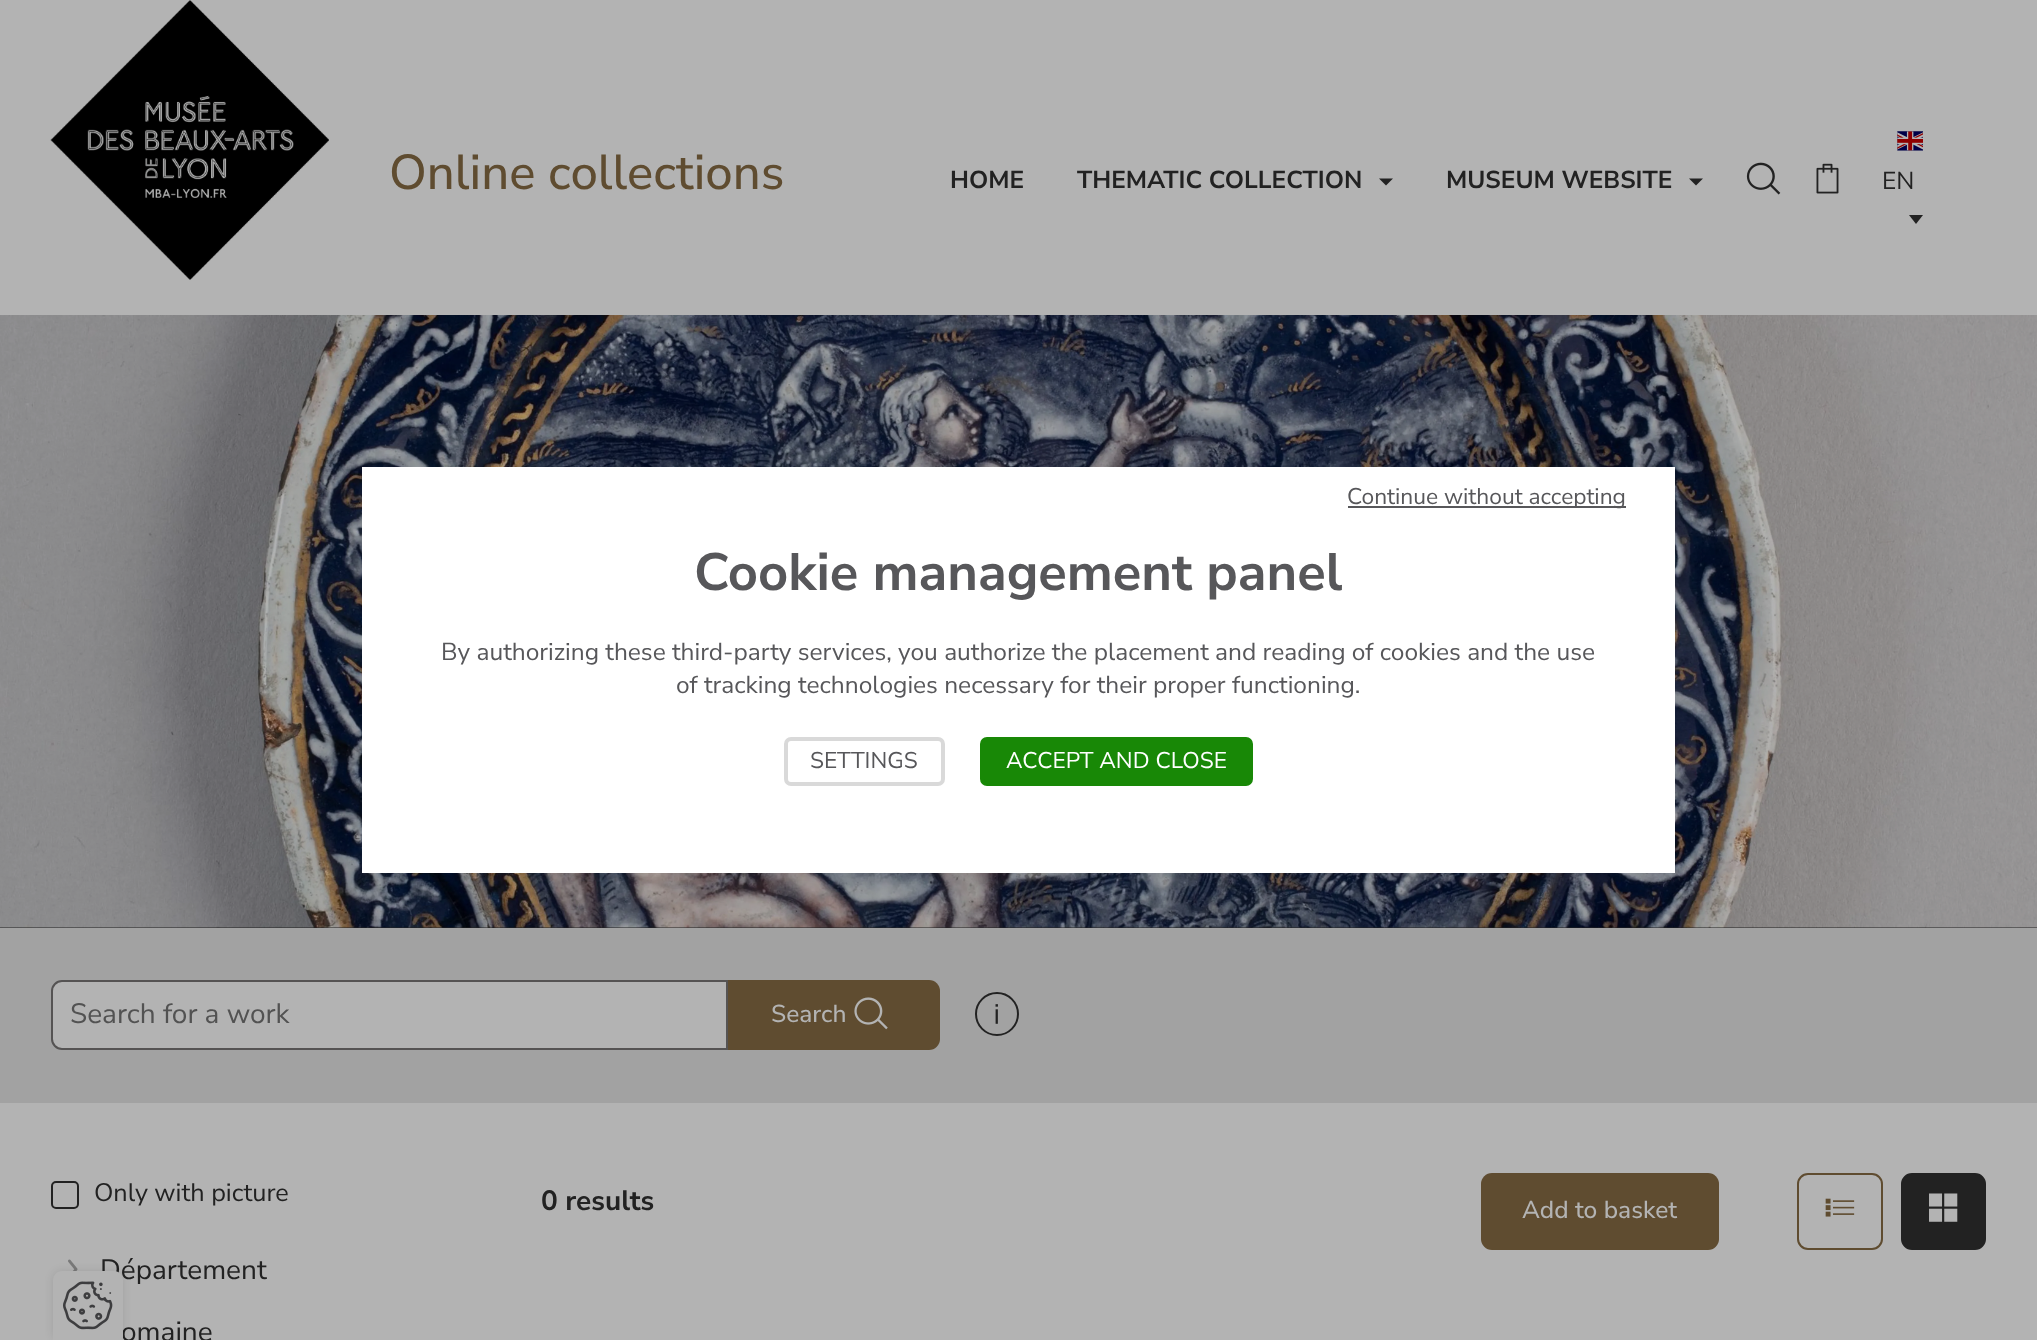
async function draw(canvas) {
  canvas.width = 2037
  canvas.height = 1340
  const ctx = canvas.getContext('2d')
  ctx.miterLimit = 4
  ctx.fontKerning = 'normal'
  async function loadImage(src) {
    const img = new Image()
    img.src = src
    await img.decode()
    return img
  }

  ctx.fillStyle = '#b3b3b3'
  ctx.fillRect(0, 0, 2037, 1340)
  ctx.drawImage(await loadImage('image0.png'), 50, 0, 279, 280)
  ctx.font = '200 49px Nunito Sans'
  ctx.fillStyle = '#5f4c30'
  ctx.fillText('Online collections', 389, 189)
  ctx.font = '200 24.5px "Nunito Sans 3"'
  ctx.fillStyle = '#222'
  ctx.fillText('HOME', 950, 188)
  ctx.fillText('THEMATIC COLLECTION', 1077, 188)
  ctx.beginPath()
  ctx.moveTo(1379, 178.5)
  ctx.lineTo(1393, 178.5)
  ctx.lineTo(1386, 185.5)
  ctx.closePath()
  ctx.fill()
  ctx.fillText('MUSEUM WEBSITE', 1446, 188)
  ctx.beginPath()
  ctx.moveTo(1689, 178.5)
  ctx.lineTo(1703, 178.5)
  ctx.lineTo(1696, 185.5)
  ctx.closePath()
  ctx.fill()
  ctx.drawImage(await loadImage('image1.png'), 1746, 162, 35, 33)
  ctx.drawImage(await loadImage('image2.png'), 1816, 163, 23, 31)
  ctx.drawImage(await loadImage('image3.png'), 1897, 131, 26, 20)
  ctx.font = '200 24.5px "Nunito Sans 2"'
  ctx.fillText('EN', 1882, 189)
  ctx.beginPath()
  ctx.moveTo(1909, 215)
  ctx.lineTo(1923, 215)
  ctx.lineTo(1916, 224)
  ctx.closePath()
  ctx.fill()
  ctx.fillRect(0, 927, 2037, 1)
  ctx.drawImage(await loadImage('image4.png'), 0, 315, 2037, 613)
  ctx.fillStyle = '#a2a2a2'
  ctx.fillRect(0, 928, 2037, 175)
  ctx.fillStyle = '#b3b3b3'
  ctx.beginPath()
  ctx.roundRect(52, 981, 675, 68, [10, 0, 0, 10])
  ctx.fill()
  ctx.strokeStyle = '#555353'
  ctx.lineWidth = 2
  ctx.stroke()
  ctx.font = '200 28px "Nunito Sans 2"'
  ctx.fillStyle = '#525252'
  ctx.fillText('Search for a work', 70, 1023)
  ctx.fillStyle = '#5f4c30'
  ctx.beginPath()
  ctx.roundRect(728, 980, 212, 70, [0, 11, 11, 0])
  ctx.fill()
  ctx.font = '200 24.5px Nunito Sans'
  ctx.fillStyle = '#b3b3b3'
  ctx.fillText('Search', 771, 1022)
  ctx.drawImage(await loadImage('image5.png'), 854, 997, 34, 33)
  ctx.beginPath()
  ctx.arc(997, 1014, 21, 0, 2 * Math.PI)
  ctx.strokeStyle = '#222'
  ctx.stroke()
  ctx.drawImage(await loadImage('image6.png'), 995, 1004, 3, 20)
  ctx.beginPath()
  ctx.roundRect(52, 1182, 26, 26, 4)
  ctx.stroke()
  ctx.font = '200 25.25px "Nunito Sans 2"'
  ctx.fillStyle = '#222'
  ctx.fillText('Only with picture', 94, 1201)
  ctx.drawImage(await loadImage('image7.png'), 68, 1259, 10, 12)
  ctx.font = '200 28px "Nunito Sans 2"'
  ctx.fillText('Département', 100, 1279)
  ctx.fillText('omaine', 121, 1341)
  ctx.font = '200 28px "Nunito Sans 3"'
  ctx.fillText('0 results', 541, 1210)
  ctx.fillStyle = '#5f4c30'
  ctx.beginPath()
  ctx.roundRect(1481, 1173, 238, 77, 11)
  ctx.fill()
  ctx.font = '200 24.5px Nunito Sans'
  ctx.fillStyle = '#b3b3b3'
  ctx.fillText('Add to basket', 1522, 1218)
  ctx.beginPath()
  ctx.roundRect(1798, 1174, 84, 75, 10)
  ctx.strokeStyle = '#5f4c30'
  ctx.stroke()
  ctx.drawImage(await loadImage('image8.png'), 1825, 1198, 30, 19)
  ctx.fillStyle = '#222'
  ctx.beginPath()
  ctx.roundRect(1902, 1174, 83, 75, 10)
  ctx.fill()
  ctx.strokeStyle = '#222'
  ctx.stroke()
  ctx.drawImage(await loadImage('image9.png'), 1929, 1193, 29, 29)
  ctx.fillStyle = '#fff'
  ctx.fillRect(362, 467, 1313, 406)
  ctx.fillStyle = '#57575a'
  ctx.fillRect(1348, 506, 278, 2)
  ctx.font = '200 22.75px "Nunito Sans 2"'
  ctx.fillText('Continue without accepting', 1347, 504)
  ctx.beginPath()
  ctx.roundRect(786, 739, 157, 45, 5)
  ctx.strokeStyle = '#d9d9d9'
  ctx.lineWidth = 4
  ctx.stroke()
  ctx.fillText('SETTINGS', 810, 768)
  ctx.fillStyle = '#188806'
  ctx.beginPath()
  ctx.roundRect(982, 739, 269, 45, 5)
  ctx.fill()
  ctx.strokeStyle = '#188806'
  ctx.stroke()
  ctx.fillStyle = '#fff'
  ctx.fillText('ACCEPT AND CLOSE', 1006, 768)
  ctx.font = '200 52.5px "Nunito Sans 3"'
  ctx.fillStyle = '#57575a'
  ctx.fillText('Cookie management panel', 694, 590)
  ctx.font = '200 24.5px "Nunito Sans 2"'
  ctx.fillText('By authorizing these third-party services, you authorize the placement and reading of cookies and the use', 441, 660)
  ctx.fillText('of tracking technologies necessary for their proper functioning.', 676, 693)
  ctx.fillStyle = '#0000001a'
  ctx.filter = 'blur(4.5px)'
  ctx.beginPath()
  ctx.roundRect(53, 1271, 70, 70, 9)
  ctx.fill()
  ctx.filter = 'none'
  ctx.fillStyle = '#b3b3b3'
  ctx.beginPath()
  ctx.moveTo(62, 1271)
  ctx.lineTo(114, 1271)
  ctx.bezierCurveTo(119, 1271, 123, 1275, 123, 1280)
  ctx.lineTo(123, 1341)
  ctx.lineTo(53, 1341)
  ctx.lineTo(53, 1280)
  ctx.bezierCurveTo(53, 1275, 57, 1271, 62, 1271)
  ctx.closePath()
  ctx.fill()
  ctx.drawImage(await loadImage('image10.png'), 63, 1281, 50, 49)
}

draw(document.querySelector('canvas'))
